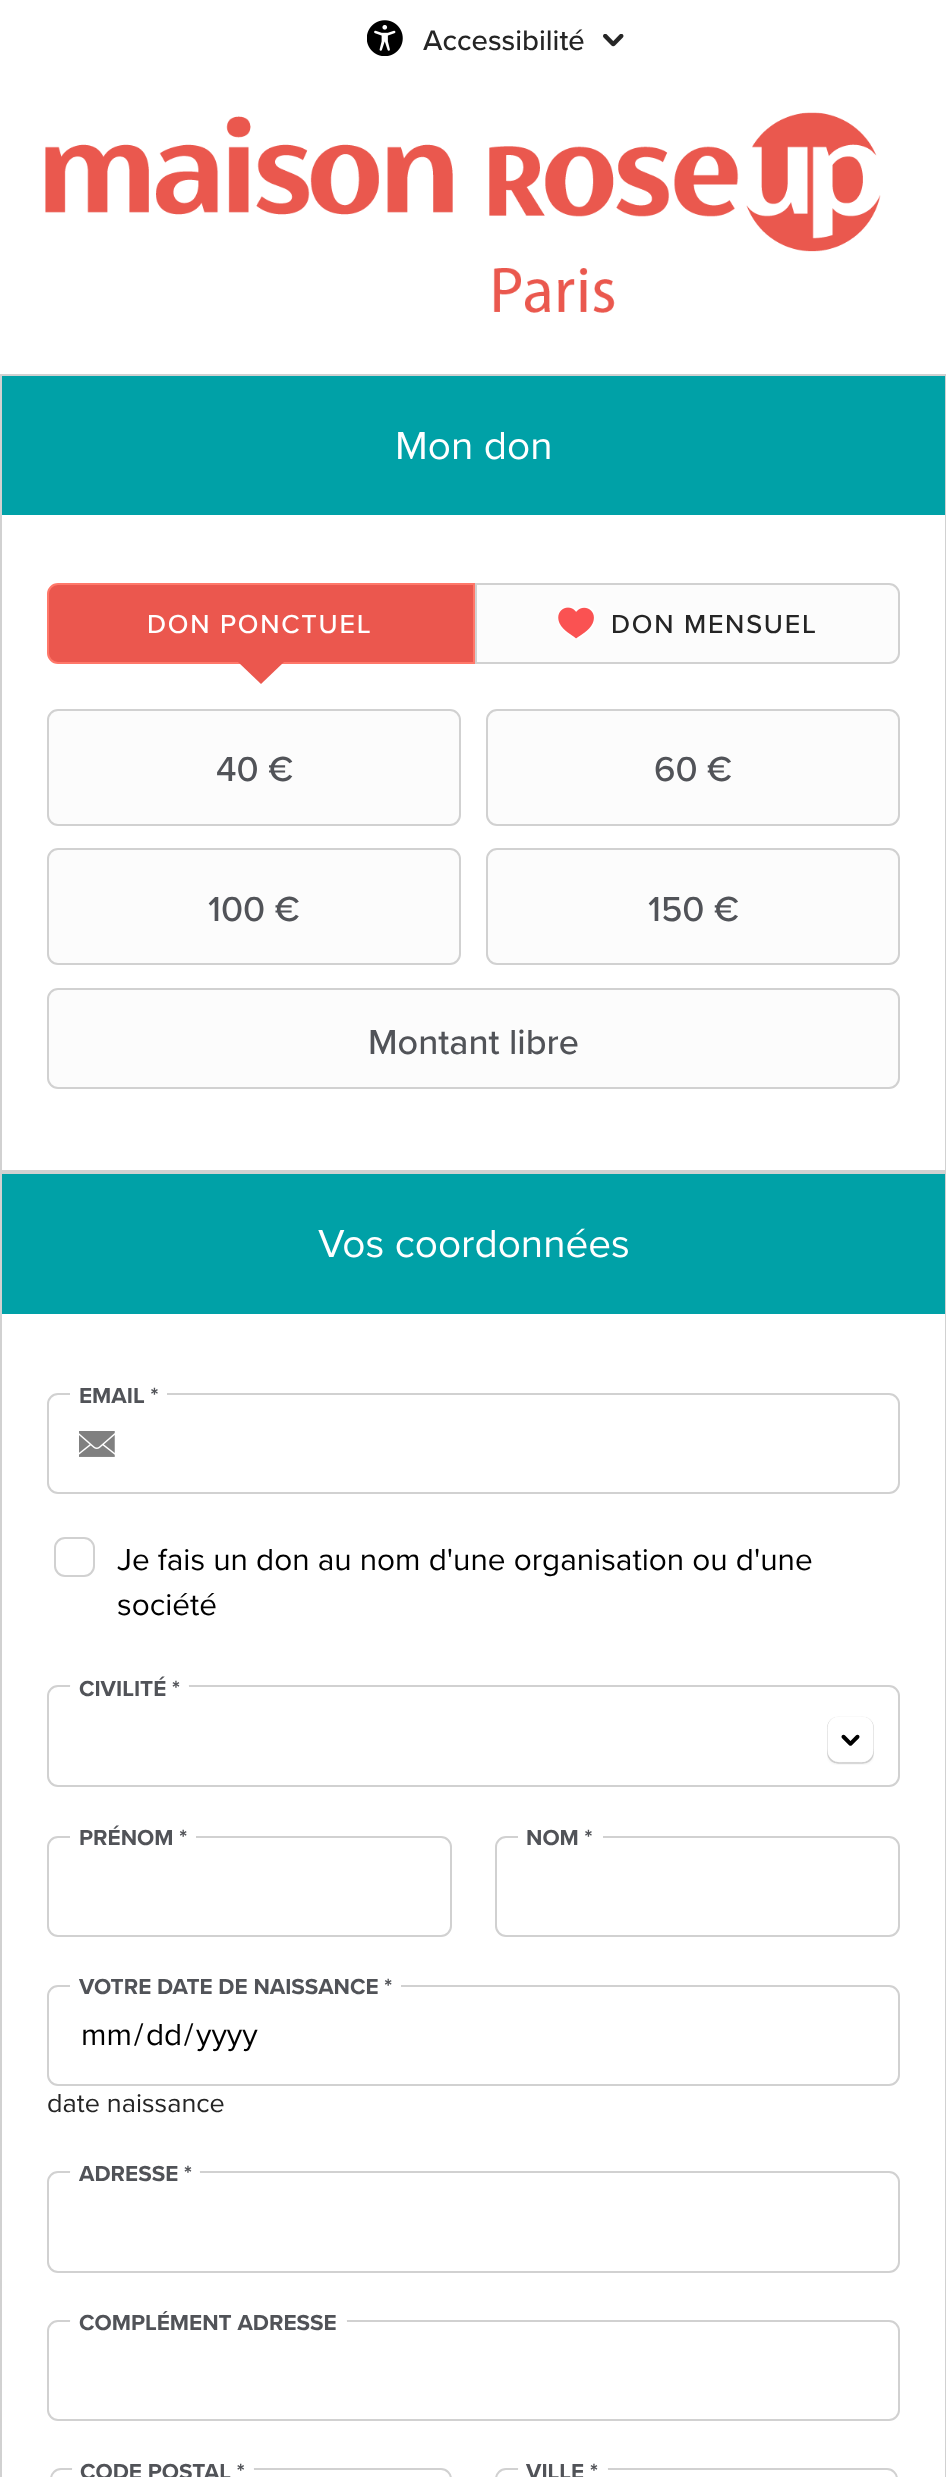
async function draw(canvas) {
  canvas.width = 946
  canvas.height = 2477
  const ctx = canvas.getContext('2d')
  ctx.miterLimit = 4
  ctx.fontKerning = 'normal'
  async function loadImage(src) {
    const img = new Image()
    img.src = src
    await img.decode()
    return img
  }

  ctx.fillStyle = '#fff'
  ctx.fillRect(0, 0, 946, 2477)
  ctx.drawImage(await loadImage('image0.png'), 603, 34, 21, 13)
  ctx.drawImage(await loadImage('image1.png'), 367, 20, 36, 36)
  ctx.font = '500 29.25px Proxima Nova'
  ctx.fillStyle = '#252525'
  ctx.fillText('Accessibilité', 423, 50)
  ctx.drawImage(await loadImage('image2.png'), 45, 112, 836, 201)
  ctx.fillStyle = '#00a1a7'
  ctx.fillRect(2, 376, 943, 139)
  ctx.fillStyle = '#d1d1d1'
  ctx.fillRect(0, 374, 946, 2)
  ctx.fillRect(945, 374, 1, 141)
  ctx.fillRect(0, 374, 2, 141)
  ctx.font = '40.5px Proxima Nova'
  ctx.fillStyle = '#fff'
  ctx.fillText('Mon don', 395, 459)
  ctx.fillStyle = '#d1d1d1'
  ctx.fillRect(945, 515, 1, 657)
  ctx.fillRect(0, 1170, 946, 4)
  ctx.fillRect(0, 515, 2, 657)
  ctx.fillStyle = '#eb574e'
  ctx.beginPath()
  ctx.roundRect(48, 584, 426, 79, [10, 0, 0, 10])
  ctx.fill()
  ctx.strokeStyle = '#ff786a'
  ctx.lineWidth = 2
  ctx.stroke()
  ctx.letterSpacing = '1.75px'
  ctx.font = '500 27px Proxima Nova'
  ctx.fillStyle = '#fff'
  ctx.fillText('DON PONCTUEL', 147, 633)
  ctx.fillStyle = '#eb574e'
  ctx.beginPath()
  ctx.moveTo(238, 662)
  ctx.lineTo(284, 662)
  ctx.lineTo(261, 684)
  ctx.closePath()
  ctx.fill()
  ctx.fillStyle = '#fcfcfc'
  ctx.beginPath()
  ctx.roundRect(476, 584, 423, 79, [0, 10, 10, 0])
  ctx.fill()
  ctx.strokeStyle = '#d1d1d1'
  ctx.stroke()
  ctx.drawImage(await loadImage('image3.png'), 558, 607, 36, 32)
  ctx.fillStyle = '#252525'
  ctx.fillText('DON MENSUEL', 611, 633)
  ctx.fillStyle = '#fcfcfc'
  ctx.beginPath()
  ctx.roundRect(48, 710, 412, 115, 10)
  ctx.fill()
  ctx.stroke()
  ctx.letterSpacing = '0px'
  ctx.font = '500 36px Proxima Nova'
  ctx.fillStyle = '#515358'
  ctx.fillText('40 €', 216, 781)
  ctx.fillStyle = '#fcfcfc'
  ctx.beginPath()
  ctx.roundRect(487, 710, 412, 115, 10)
  ctx.fill()
  ctx.stroke()
  ctx.fillStyle = '#515358'
  ctx.fillText('60 €', 654, 781)
  ctx.fillStyle = '#fcfcfc'
  ctx.beginPath()
  ctx.roundRect(48, 849, 412, 115, 10)
  ctx.fill()
  ctx.stroke()
  ctx.fillStyle = '#515358'
  ctx.fillText('100 €', 208, 921)
  ctx.fillStyle = '#fcfcfc'
  ctx.beginPath()
  ctx.roundRect(487, 849, 412, 115, 10)
  ctx.fill()
  ctx.stroke()
  ctx.fillStyle = '#515358'
  ctx.fillText('150 €', 648, 921)
  ctx.fillStyle = '#fcfcfc'
  ctx.beginPath()
  ctx.roundRect(48, 989, 851, 99, 10)
  ctx.fill()
  ctx.stroke()
  ctx.fillStyle = '#515358'
  ctx.fillText('Montant libre', 368, 1054)
  ctx.fillStyle = '#00a1a7'
  ctx.fillRect(2, 1174, 943, 140)
  ctx.font = '40.5px Proxima Nova'
  ctx.fillStyle = '#fff'
  ctx.fillText('Vos coordonnées', 318, 1257)
  ctx.fillStyle = '#d1d1d1'
  ctx.fillRect(945, 1172, 1, 1305)
  ctx.fillRect(0, 1172, 2, 1305)
  ctx.beginPath()
  ctx.roundRect(48, 1394, 851, 99, 10)
  ctx.stroke()
  ctx.fillStyle = '#fff'
  ctx.beginPath()
  ctx.roundRect(70, 1382, 97, 29, 11)
  ctx.fill()
  ctx.font = 'bold 22.5px Proxima Nova'
  ctx.fillStyle = '#515358'
  ctx.fillText('EMAIL *', 79, 1403)
  ctx.drawImage(await loadImage('image4.png'), 79, 1431, 36, 26)
  ctx.beginPath()
  ctx.roundRect(55, 1538, 39, 38, 10)
  ctx.stroke()
  ctx.font = '31.5px Proxima Nova'
  ctx.fillStyle = '#000'
  ctx.fillText('Je fais un don au nom d\'une organisation ou d\'une', 117, 1570)
  ctx.fillText('société', 117, 1615)
  ctx.beginPath()
  ctx.roundRect(48, 1686, 851, 100, 10)
  ctx.stroke()
  ctx.fillStyle = '#fff'
  ctx.beginPath()
  ctx.roundRect(70, 1676, 119, 27, 11)
  ctx.fill()
  ctx.font = 'bold 22.5px Proxima Nova'
  ctx.fillStyle = '#515358'
  ctx.fillText('CIVILITÉ *', 79, 1696)
  ctx.drawImage(await loadImage('image5.png'), 827, 1716, 47, 49)
  ctx.beginPath()
  ctx.roundRect(48, 1837, 403, 99, 10)
  ctx.stroke()
  ctx.fillStyle = '#fff'
  ctx.beginPath()
  ctx.roundRect(70, 1825, 126, 27, 11)
  ctx.fill()
  ctx.fillStyle = '#515358'
  ctx.fillText('PRÉNOM *', 79, 1845)
  ctx.beginPath()
  ctx.roundRect(496, 1837, 403, 99, 10)
  ctx.stroke()
  ctx.fillStyle = '#fff'
  ctx.beginPath()
  ctx.roundRect(518, 1825, 85, 27, 11)
  ctx.fill()
  ctx.fillStyle = '#515358'
  ctx.fillText('NOM *', 526, 1845)
  ctx.beginPath()
  ctx.roundRect(48, 1986, 851, 99, 10)
  ctx.stroke()
  ctx.fillStyle = '#fff'
  ctx.beginPath()
  ctx.roundRect(70, 1973, 331, 30, 11)
  ctx.fill()
  ctx.fillStyle = '#515358'
  ctx.fillText('VOTRE DATE DE NAISSANCE *', 79, 1994)
  ctx.font = '31.5px Proxima Nova'
  ctx.fillStyle = '#000'
  ctx.fillText('mm', 81, 2045)
  ctx.fillText('/', 134, 2045)
  ctx.fillText('dd', 146, 2045)
  ctx.fillText('/', 184, 2045)
  ctx.fillText('yyyy', 196, 2045)
  ctx.font = '27px Proxima Nova'
  ctx.fillStyle = '#252525'
  ctx.fillText('date naissance', 47, 2112)
  ctx.beginPath()
  ctx.roundRect(48, 2172, 851, 100, 10)
  ctx.stroke()
  ctx.fillStyle = '#fff'
  ctx.beginPath()
  ctx.roundRect(70, 2162, 130, 27, 11)
  ctx.fill()
  ctx.font = 'bold 22.5px Proxima Nova'
  ctx.fillStyle = '#515358'
  ctx.fillText('ADRESSE *', 79, 2181)
  ctx.beginPath()
  ctx.roundRect(48, 2321, 851, 99, 10)
  ctx.stroke()
  ctx.fillStyle = '#fff'
  ctx.beginPath()
  ctx.roundRect(70, 2311, 277, 27, 11)
  ctx.fill()
  ctx.save()
  ctx.beginPath()
  ctx.roundRect(70, 2311, 277, 27, 11)
  ctx.clip()
  ctx.fillStyle = '#515358'
  ctx.fillText('COMPLÉMENT ADRESSE', 79, 2330)
  ctx.restore()
  ctx.beginPath()
  ctx.roundRect(51, 2469, 400, 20, 10)
  ctx.stroke()
  ctx.beginPath()
  ctx.roundRect(72, 2459, 182, 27, 11)
  ctx.fill()
  ctx.fillStyle = '#515358'
  ctx.fillText('CODE POSTAL *', 80, 2479)
  ctx.beginPath()
  ctx.roundRect(496, 2469, 401, 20, 10)
  ctx.stroke()
  ctx.fillStyle = '#fff'
  ctx.beginPath()
  ctx.roundRect(518, 2459, 90, 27, 11)
  ctx.fill()
  ctx.fillStyle = '#515358'
  ctx.fillText('VILLE *', 526, 2479)
}

draw(document.querySelector('canvas'))
